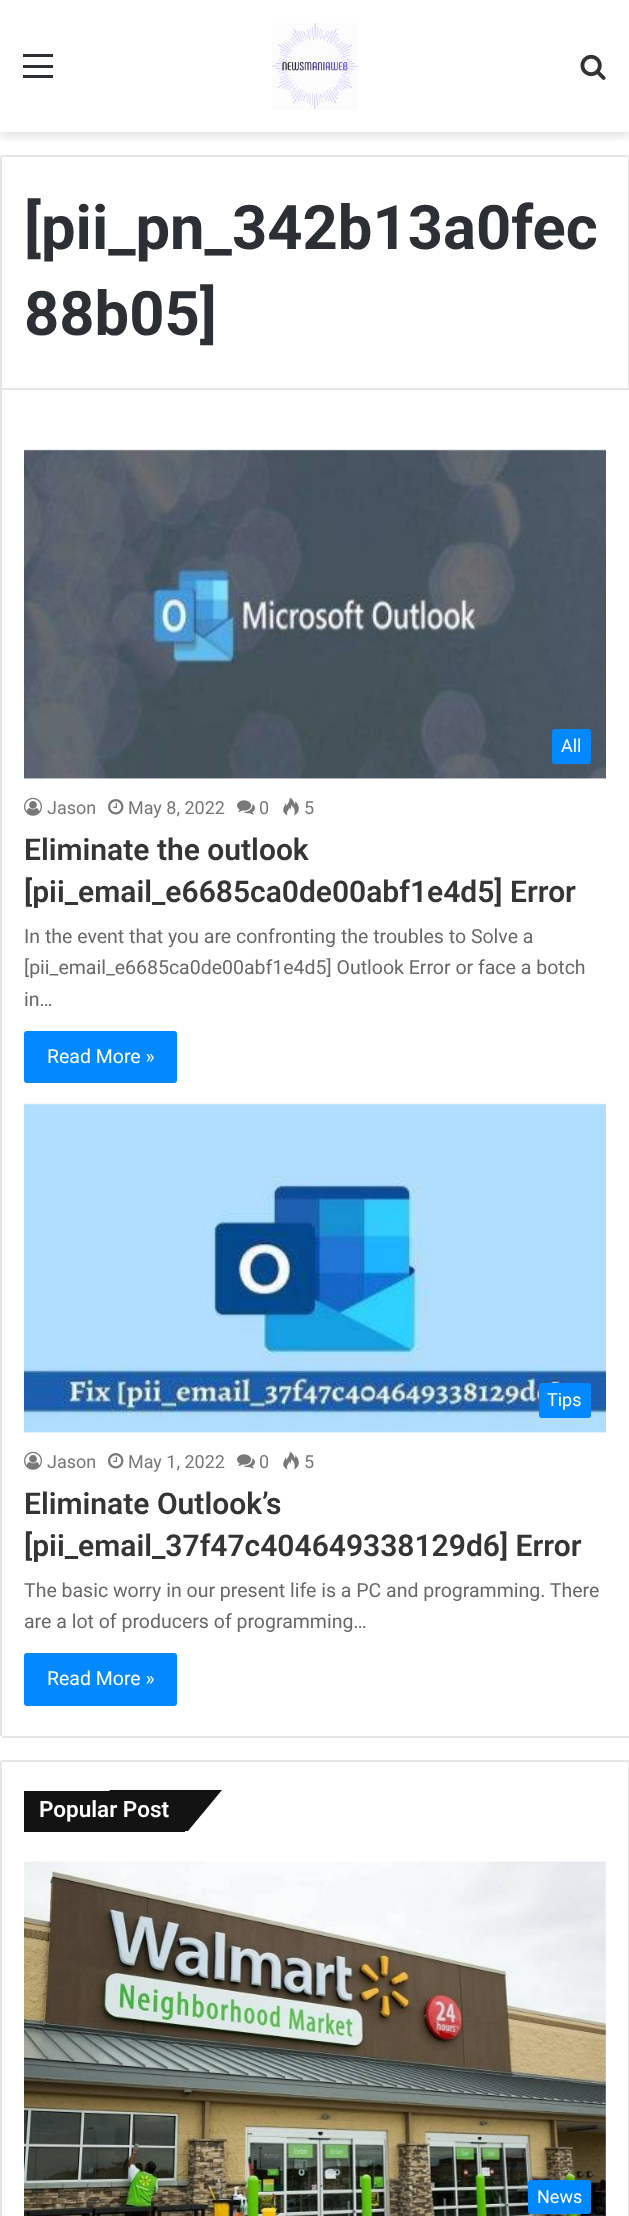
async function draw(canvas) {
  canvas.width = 629
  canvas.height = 2216
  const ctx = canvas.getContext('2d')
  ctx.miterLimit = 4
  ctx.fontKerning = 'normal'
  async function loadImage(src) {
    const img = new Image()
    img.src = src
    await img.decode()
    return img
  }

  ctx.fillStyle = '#fff'
  ctx.fillRect(0, 0, 629, 2216)
  ctx.save()
  ctx.beginPath()
  ctx.rect(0, 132, 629, 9)
  ctx.clip()
  ctx.fillStyle = '#0000001a'
  ctx.filter = 'blur(5px)'
  ctx.beginPath()
  ctx.rect(0, 5, 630, 132)
  ctx.fill()
  ctx.filter = 'none'
  ctx.restore()
  ctx.fillStyle = '#2c2f34'
  ctx.fillRect(23, 65, 30, 3)
  ctx.fillRect(23, 54, 30, 3)
  ctx.fillRect(23, 75, 30, 3)
  ctx.drawImage(await loadImage('image0.png'), 272, 23, 86, 87)
  ctx.drawImage(await loadImage('image1.png'), 580, 54, 26, 26)
  ctx.beginPath()
  ctx.moveTo(3, 156)
  ctx.lineTo(627, 156)
  ctx.bezierCurveTo(628, 156, 629, 157, 629, 158)
  ctx.lineTo(629, 389)
  ctx.lineTo(1, 389)
  ctx.lineTo(1, 158)
  ctx.bezierCurveTo(1, 157, 2, 156, 3, 156)
  ctx.closePath()
  ctx.strokeStyle = '#e6e6e6'
  ctx.lineWidth = 2
  ctx.stroke()
  ctx.font = 'bold 61.5px Roboto'
  ctx.fillText('[pii_pn_342b13a0fec', 24, 249)
  ctx.fillText('88b05]', 24, 335)
  ctx.fillStyle = '#e6e6e6'
  ctx.fillRect(2, 1736, 627, 2)
  ctx.fillRect(0, 390, 2, 1346)
  ctx.drawImage(await loadImage('image2.png'), 24, 449, 582, 330)
  ctx.fillStyle = '#0389ff'
  ctx.beginPath()
  ctx.roundRect(552, 729, 39, 35, 3)
  ctx.fill()
  ctx.font = '18px Roboto'
  ctx.fillStyle = '#fff'
  ctx.fillText('All', 561, 752)
  ctx.drawImage(await loadImage('image3.png'), 24, 797, 18, 19)
  ctx.fillStyle = '#777'
  ctx.fillText('Jason', 47, 814)
  ctx.drawImage(await loadImage('image4.png'), 108, 799, 16, 16)
  ctx.fillText('May 8, 2022', 128, 814)
  ctx.drawImage(await loadImage('image5.png'), 237, 800, 18, 15)
  ctx.fillText('0', 259, 814)
  ctx.drawImage(await loadImage('image6.png'), 283, 797, 16, 19)
  ctx.fillText('5', 304, 814)
  ctx.font = '600 30px Roboto'
  ctx.fillStyle = '#353535'
  ctx.fillText('Eliminate the outlook', 24, 860)
  ctx.fillText('[pii_email_e6685ca0de00abf1e4d5] Error', 24, 902)
  ctx.font = '19.5px Roboto'
  ctx.fillStyle = '#686868'
  ctx.fillText('In the event that you are confronting the troubles to Solve a', 24, 943)
  ctx.fillText('[pii_email_e6685ca0de00abf1e4d5] Outlook Error or face a botch', 24, 974)
  ctx.fillText('in…', 24, 1006)
  ctx.fillStyle = '#0389ff'
  ctx.beginPath()
  ctx.roundRect(24, 1031, 153, 52, 3)
  ctx.fill()
  ctx.fillStyle = '#fff'
  ctx.fillText('Read More »', 47, 1063)
  ctx.drawImage(await loadImage('image7.png'), 24, 1103, 582, 330)
  ctx.fillStyle = '#0389ff'
  ctx.beginPath()
  ctx.roundRect(539, 1383, 52, 35, 3)
  ctx.fill()
  ctx.font = '18px Roboto'
  ctx.fillStyle = '#fff'
  ctx.fillText('Tips', 547, 1406)
  ctx.drawImage(await loadImage('image3.png'), 24, 1451, 18, 19)
  ctx.fillStyle = '#777'
  ctx.fillText('Jason', 47, 1468)
  ctx.drawImage(await loadImage('image4.png'), 108, 1453, 16, 16)
  ctx.fillText('May 1, 2022', 128, 1468)
  ctx.drawImage(await loadImage('image5.png'), 237, 1454, 18, 15)
  ctx.fillText('0', 259, 1468)
  ctx.drawImage(await loadImage('image6.png'), 283, 1451, 16, 19)
  ctx.fillText('5', 304, 1468)
  ctx.font = '600 30px Roboto'
  ctx.fillStyle = '#353535'
  ctx.fillText('Eliminate Outlook’s', 24, 1514)
  ctx.fillText('[pii_email_37f47c404649338129d6] Error', 24, 1556)
  ctx.font = '19.5px Roboto'
  ctx.fillStyle = '#686868'
  ctx.fillText('The basic worry in our present life is a PC and programming. There', 24, 1597)
  ctx.fillText('are a lot of producers of programming…', 24, 1628)
  ctx.fillStyle = '#0389ff'
  ctx.beginPath()
  ctx.roundRect(24, 1653, 153, 53, 3)
  ctx.fill()
  ctx.fillStyle = '#fff'
  ctx.fillText('Read More »', 47, 1685)
  ctx.beginPath()
  ctx.roundRect(1, 1761, 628, 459, 2)
  ctx.stroke()
  ctx.fillStyle = '#131313'
  ctx.fillRect(24, 1791, 161, 41)
  ctx.beginPath()
  ctx.moveTo(110, 1790)
  ctx.lineTo(222, 1790)
  ctx.lineTo(188, 1831)
  ctx.lineTo(76, 1831)
  ctx.closePath()
  ctx.fill()
  ctx.font = '600 22.5px Roboto'
  ctx.fillStyle = '#fff'
  ctx.fillText('Popular Post', 39, 1817)
  ctx.drawImage(await loadImage('image8.png'), 24, 1861, 582, 355)
  ctx.fillStyle = '#08f'
  ctx.beginPath()
  ctx.roundRect(528, 2180, 63, 34, 3)
  ctx.fill()
  ctx.font = '18px Roboto'
  ctx.fillStyle = '#fff'
  ctx.fillText('News', 537, 2203)
}

draw(document.querySelector('canvas'))
